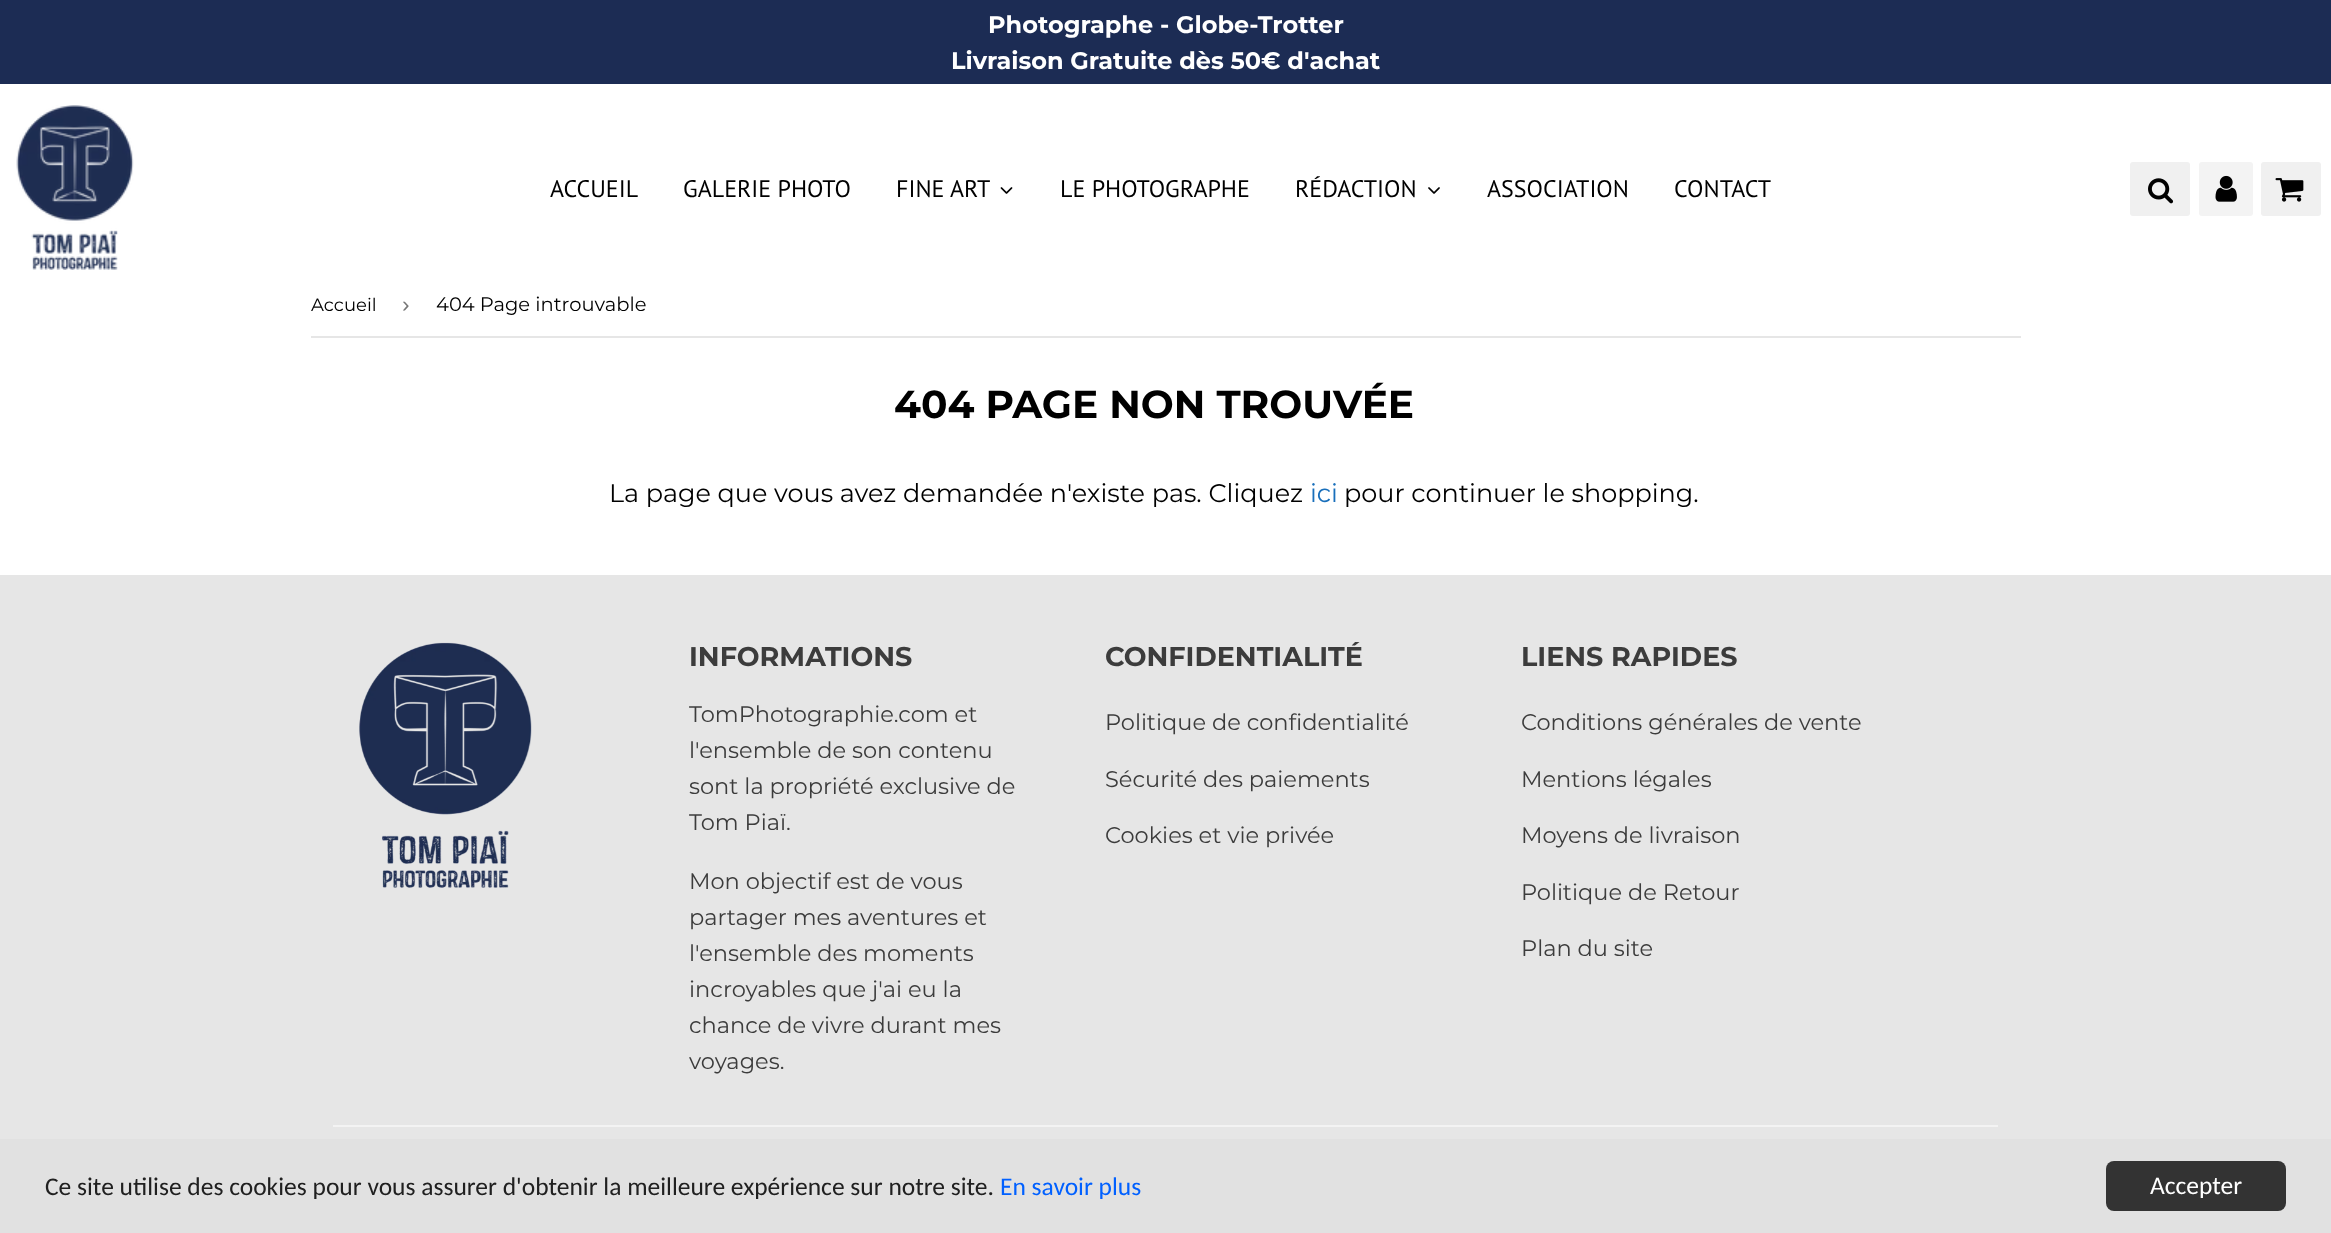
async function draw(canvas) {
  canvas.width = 2331
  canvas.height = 1233
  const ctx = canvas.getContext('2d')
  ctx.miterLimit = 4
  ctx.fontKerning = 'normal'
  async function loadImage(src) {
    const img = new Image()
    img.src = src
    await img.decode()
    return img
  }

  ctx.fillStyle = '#fff'
  ctx.fillRect(0, 0, 2331, 1233)
  ctx.fillStyle = '#1c2c54'
  ctx.fillRect(0, 0, 2331, 84)
  ctx.font = 'bold 24px Montserrat'
  ctx.fillStyle = '#fff'
  ctx.fillText('Photographe - Globe-Trotter', 988, 33)
  ctx.fillText('Livraison Gratuite dès 50€ d\'achat', 951, 69)
  ctx.drawImage(await loadImage('image0.png'), 16, 105, 118, 165)
  ctx.font = '24px PT Sans'
  ctx.fillStyle = '#000'
  ctx.fillText('ACCUEIL', 550, 197)
  ctx.fillText('GALERIE PHOTO', 683, 197)
  ctx.fillText('FINE ART', 896, 197)
  ctx.drawImage(await loadImage('image1.png'), 1000, 187, 13, 7)
  ctx.fillText('LE PHOTOGRAPHE', 1060, 197)
  ctx.fillText('RÉDACTION', 1295, 197)
  ctx.drawImage(await loadImage('image2.png'), 1428, 187, 12, 7)
  ctx.fillText('ASSOCIATION', 1487, 197)
  ctx.fillText('CONTACT', 1674, 197)
  ctx.fillStyle = '#f0f0f0'
  ctx.beginPath()
  ctx.roundRect(2130, 162, 60, 54, 3)
  ctx.fill()
  ctx.drawImage(await loadImage('image3.png'), 2148, 178, 26, 26)
  ctx.fillStyle = '#f3f3f3'
  ctx.beginPath()
  ctx.roundRect(2199, 162, 54, 54, 3)
  ctx.fill()
  ctx.drawImage(await loadImage('image4.png'), 2215, 175, 22, 27)
  ctx.fillStyle = '#f0f0f0'
  ctx.beginPath()
  ctx.roundRect(2261, 162, 60, 54, 3)
  ctx.fill()
  ctx.drawImage(await loadImage('image5.png'), 2275, 178, 29, 24)
  ctx.fillStyle = '#e6e6e6'
  ctx.fillRect(311, 336, 1710, 2)
  ctx.font = '18px Montserrat'
  ctx.fillStyle = '#000'
  ctx.fillText('Accueil', 311, 311)
  ctx.font = '22.5px Liberation Sans'
  ctx.fillStyle = '#767676'
  ctx.fillText('›', 402, 312)
  ctx.font = '19.5px Montserrat'
  ctx.fillStyle = '#000'
  ctx.fillText('404 Page introuvable', 436, 311)
  ctx.font = 'bold 39.1px Montserrat'
  ctx.fillText('404 PAGE NON TROUVÉE', 894, 418)
  ctx.font = '25.5px Montserrat'
  ctx.fillText('La page que vous avez demandée n\'existe pas. Cliquez', 609, 502)
  ctx.fillStyle = '#196fbb'
  ctx.fillText('ici', 1310, 502)
  ctx.fillStyle = '#000'
  ctx.fillText('pour continuer le shopping.', 1344, 502)
  ctx.fillStyle = '#e6e6e6'
  ctx.fillRect(0, 575, 2331, 564)
  ctx.drawImage(await loadImage('image6.png'), 359, 642, 173, 246)
  ctx.font = 'bold 27px Montserrat'
  ctx.fillStyle = '#3c3c3c'
  ctx.fillText('INFORMATIONS', 689, 666)
  ctx.font = '22.5px Montserrat'
  ctx.fillText('TomPhotographie.com et', 689, 722)
  ctx.fillText('l\'ensemble de son contenu', 689, 758)
  ctx.fillText('sont la propriété exclusive de', 689, 794)
  ctx.fillText('Tom Piaï.', 689, 830)
  ctx.fillText('Mon objectif est de vous', 689, 889)
  ctx.fillText('partager mes aventures et', 689, 925)
  ctx.fillText('l\'ensemble des moments', 689, 961)
  ctx.fillText('incroyables que j\'ai eu la', 689, 997)
  ctx.fillText('chance de vivre durant mes', 689, 1033)
  ctx.fillText('voyages.', 689, 1069)
  ctx.save()
  ctx.beginPath()
  ctx.rect(1083, 642, 416, 242)
  ctx.clip()
  ctx.font = 'bold 27px Montserrat'
  ctx.fillText('CONFIDENTIALITÉ', 1105, 666)
  ctx.restore()
  ctx.fillText('Politique de confidentialité', 1105, 730)
  ctx.fillText('Sécurité des paiements', 1105, 787)
  ctx.fillText('Cookies et vie privée', 1105, 843)
  ctx.font = 'bold 27px Montserrat'
  ctx.fillText('LIENS RAPIDES', 1521, 666)
  ctx.font = '22.5px Montserrat'
  ctx.fillText('Conditions générales de vente', 1521, 730)
  ctx.fillText('Mentions légales', 1521, 787)
  ctx.fillText('Moyens de livraison', 1521, 843)
  ctx.fillText('Politique de Retour', 1521, 900)
  ctx.fillText('Plan du site', 1521, 956)
  ctx.fillStyle = '#f3f3f3'
  ctx.fillRect(333, 1125, 1665, 2)
  ctx.fillStyle = '#e1e1e1'
  ctx.fillRect(0, 1139, 2331, 94)
  ctx.font = '25.5px Carlito'
  ctx.fillStyle = '#202020'
  ctx.fillText('Ce site utilise des cookies pour vous assurer d\'obtenir la meilleure expérience sur notre site.', 45, 1195)
  ctx.fillStyle = '#0060ff'
  ctx.fillText('En savoir plus', 1000, 1195)
  ctx.fillStyle = '#333'
  ctx.beginPath()
  ctx.roundRect(2106, 1161, 180, 50, 8)
  ctx.fill()
  ctx.fillStyle = '#fff'
  ctx.fillText('Accepter', 2150, 1194)
}

draw(document.querySelector('canvas'))
